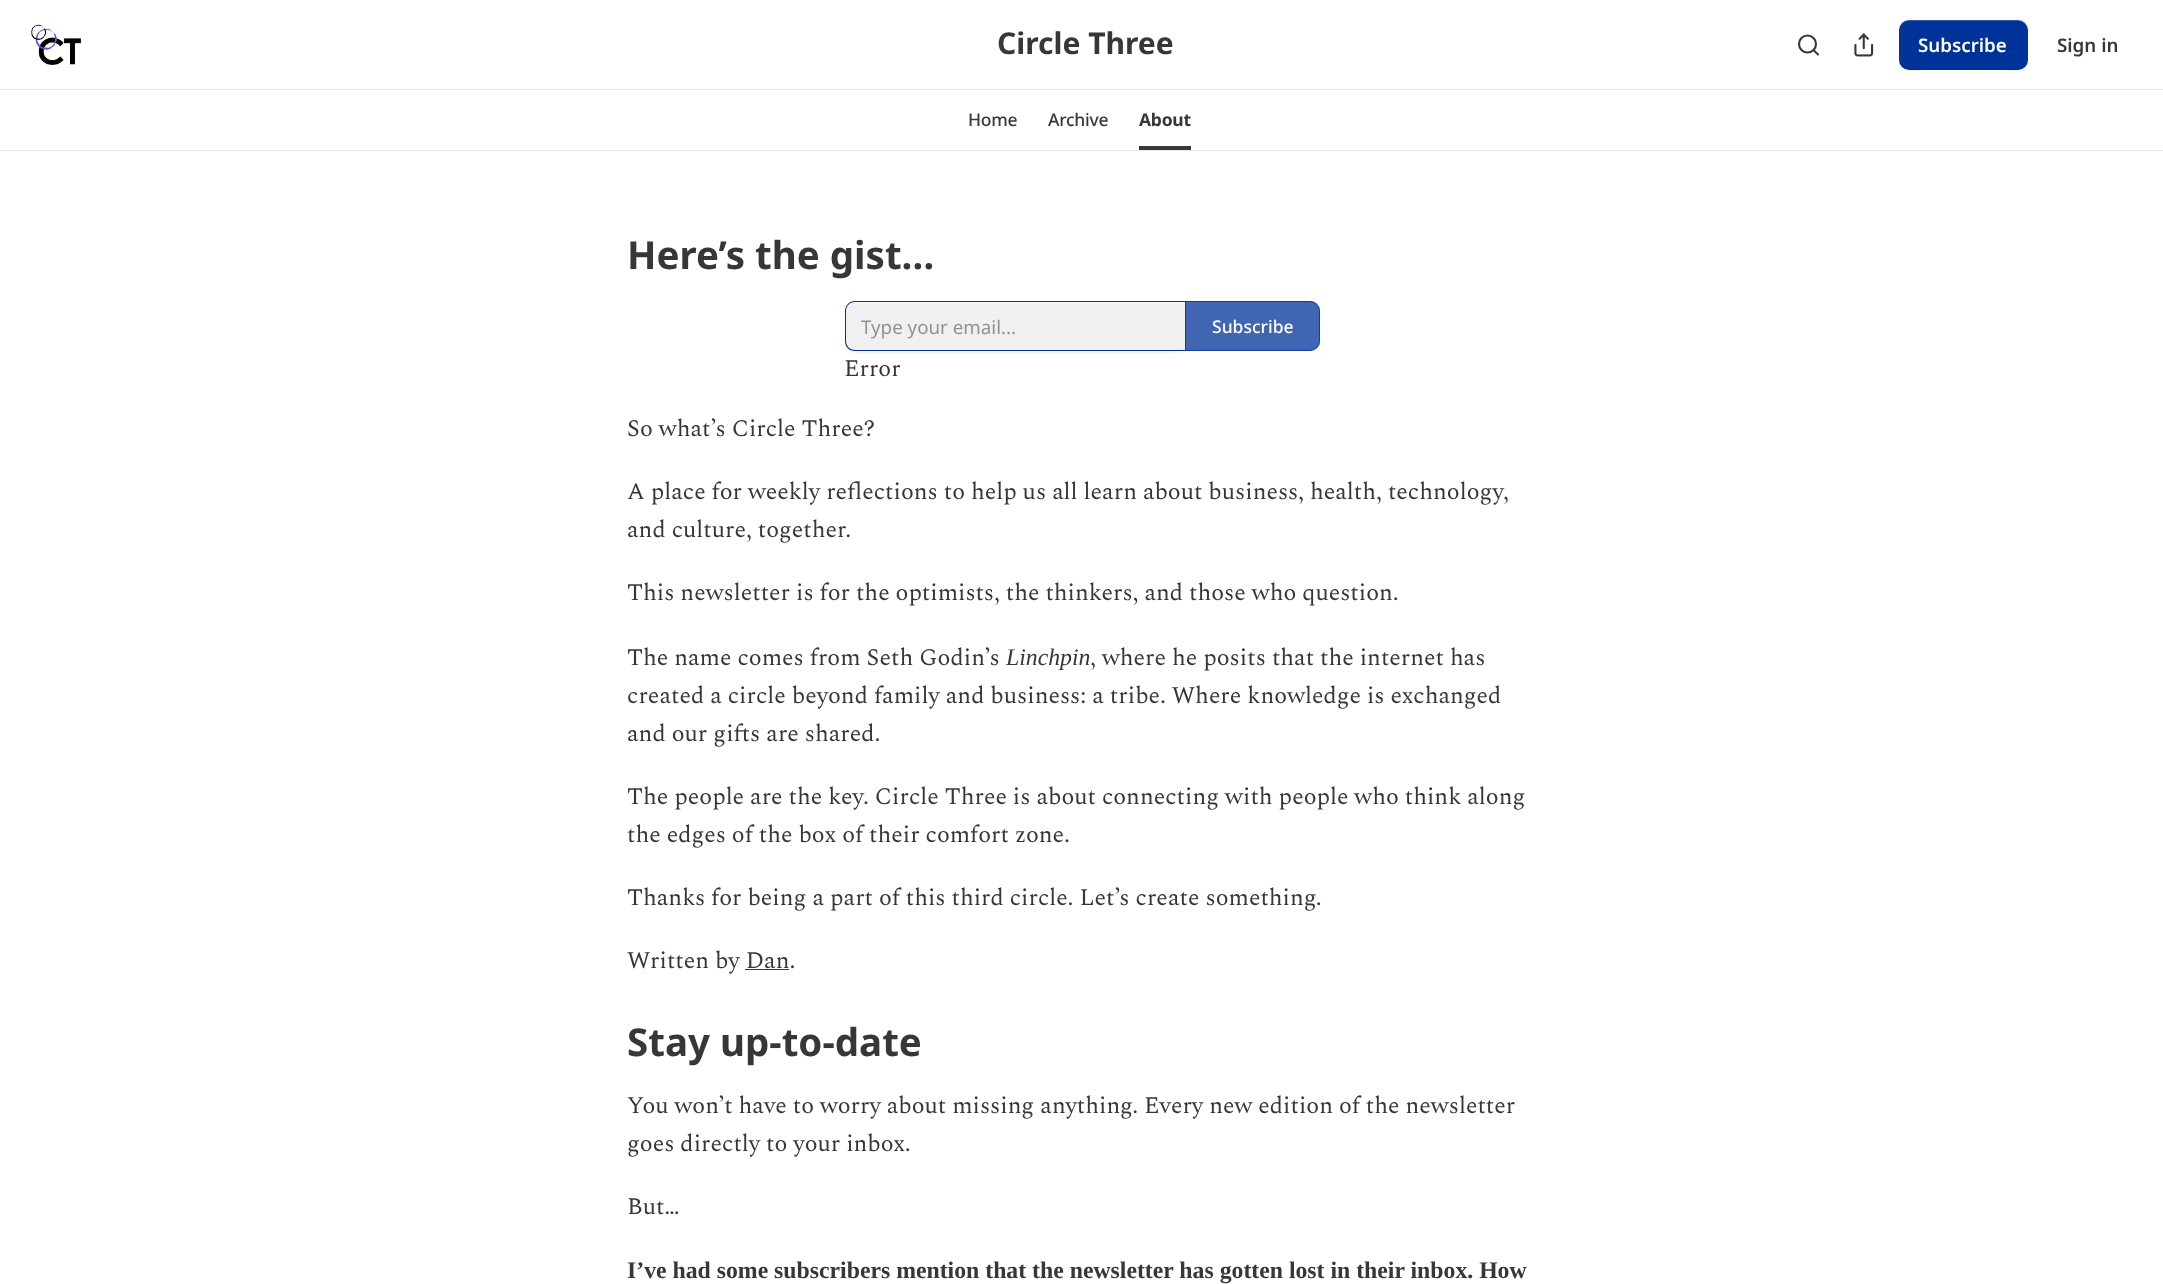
async function draw(canvas) {
  canvas.width = 2163
  canvas.height = 1284
  const ctx = canvas.getContext('2d')
  ctx.miterLimit = 4
  ctx.fontKerning = 'normal'
  async function loadImage(src) {
    const img = new Image()
    img.src = src
    await img.decode()
    return img
  }

  ctx.fillStyle = '#fff'
  ctx.fillRect(0, 0, 2163, 1284)
  ctx.drawImage(await loadImage('image0.png'), 31, 23, 51, 42)
  ctx.font = 'bold 30px Noto Sans'
  ctx.fillStyle = '#363737'
  ctx.fillText('Circle Three', 997, 54)
  ctx.beginPath()
  ctx.arc(1807.5, 44, 8.5, 0, 2 * Math.PI)
  ctx.strokeStyle = '#363737'
  ctx.lineWidth = 2.1
  ctx.stroke()
  ctx.beginPath()
  ctx.moveTo(1818, 54.5)
  ctx.lineTo(1813.5, 50)
  ctx.lineCap = 'round'
  ctx.lineJoin = 'round'
  ctx.stroke()
  ctx.drawImage(await loadImage('image1.png'), 1854, 33, 20, 24)
  ctx.fillStyle = '#039'
  ctx.beginPath()
  ctx.roundRect(1899, 20, 129, 50, 10)
  ctx.fill()
  ctx.fillStyle = '#0000001a'
  ctx.beginPath()
  ctx.moveTo(1899, 59)
  ctx.bezierCurveTo(1899, 74, 1917, 70, 1927, 70)
  ctx.lineTo(2000, 70)
  ctx.bezierCurveTo(2010, 70, 2028, 74, 2028, 59)
  ctx.bezierCurveTo(2028, 64, 2023, 69, 2018, 69)
  ctx.lineTo(1909, 69)
  ctx.bezierCurveTo(1903, 69, 1899, 64, 1899, 59)
  ctx.closePath()
  ctx.fill()
  ctx.fillStyle = '#ffffff33'
  ctx.beginPath()
  ctx.moveTo(1909, 21)
  ctx.lineTo(2018, 21)
  ctx.bezierCurveTo(2023, 21, 2028, 26, 2028, 31)
  ctx.bezierCurveTo(2028, 16, 2010, 20, 2000, 20)
  ctx.lineTo(1927, 20)
  ctx.bezierCurveTo(1917, 20, 1899, 16, 1899, 31)
  ctx.bezierCurveTo(1899, 26, 1903, 21, 1909, 21)
  ctx.closePath()
  ctx.fill()
  ctx.font = '600 18.75px Noto Sans'
  ctx.fillStyle = '#fff'
  ctx.fillText('Subscribe', 1918, 52)
  ctx.fillStyle = '#363737'
  ctx.fillText('Sign in', 2057, 52)
  ctx.fillStyle = '#e6e6e6'
  ctx.fillRect(0, 89, 2163, 1)
  ctx.fillRect(0, 150, 2163, 1)
  ctx.letterSpacing = '-0.25px'
  ctx.font = '500 17.5px Noto Sans'
  ctx.fillStyle = '#363737'
  ctx.fillText('Home', 968, 126)
  ctx.fillText('Archive', 1048, 126)
  ctx.fillRect(1139, 146, 52, 4)
  ctx.font = 'bold 17.5px Noto Sans'
  ctx.fillText('About', 1139, 126)
  ctx.letterSpacing = '0px'
  ctx.font = 'bold 38.5px Noto Sans'
  ctx.fillText('Here’s the gist…', 627, 269)
  ctx.fillStyle = '#0000000d'
  ctx.filter = 'blur(1px)'
  ctx.beginPath()
  ctx.roundRect(845, 303, 340, 50, 10)
  ctx.fill()
  ctx.filter = 'none'
  ctx.fillStyle = '#f0f0f0'
  ctx.beginPath()
  ctx.roundRect(846, 303, 339, 47, [9, 0, 0, 9])
  ctx.fill()
  ctx.fillStyle = '#039'
  ctx.beginPath()
  ctx.moveTo(855, 301)
  ctx.lineTo(1185, 301)
  ctx.lineTo(1185, 351)
  ctx.lineTo(855, 351)
  ctx.bezierCurveTo(849, 351, 845, 347, 845, 341)
  ctx.lineTo(845, 311)
  ctx.bezierCurveTo(845, 306, 849, 301, 855, 301)
  ctx.closePath()
  ctx.moveTo(855, 302)
  ctx.lineTo(1185, 302)
  ctx.lineTo(1185, 350)
  ctx.lineTo(855, 350)
  ctx.bezierCurveTo(850, 350, 846, 346, 846, 341)
  ctx.lineTo(846, 311)
  ctx.bezierCurveTo(846, 306, 850, 302, 855, 302)
  ctx.closePath()
  ctx.fill('evenodd')
  ctx.font = '18.75px Noto Sans'
  ctx.fillStyle = '#929292'
  ctx.fillText('Type your email...', 861, 334)
  ctx.fillStyle = '#003399bf'
  ctx.beginPath()
  ctx.roundRect(1185, 301, 135, 50, [0, 10, 10, 0])
  ctx.fill()
  ctx.beginPath()
  ctx.roundRect(1185.5, 301.5, 134, 49, [0, 9.5, 9.5, 0])
  ctx.strokeStyle = '#003399bf'
  ctx.lineWidth = 1
  ctx.lineJoin = 'miter'
  ctx.stroke()
  ctx.font = '500 17.5px Noto Sans'
  ctx.fillStyle = '#fff'
  ctx.fillText('Subscribe', 1212, 333)
  ctx.font = '23.75px Spectral'
  ctx.fillStyle = '#363737'
  ctx.fillText('Error', 844, 376)
  ctx.fillText('So what’s Circle Three?', 627, 436)
  ctx.fillText('A place for weekly reflections to help us all learn about business, health, technology,', 627, 499)
  ctx.fillText('and culture, together.', 627, 537)
  ctx.fillText('This newsletter is for the optimists, the thinkers, and those who question.', 627, 600)
  ctx.fillText('The name comes from Seth Godin’s', 627, 665)
  ctx.font = 'italic 23.75px Liberation Serif'
  ctx.fillText('Linchpin', 1006, 665)
  ctx.font = '23.75px Spectral'
  ctx.fillText(', where he posits that the internet has', 1090, 665)
  ctx.fillText('created a circle beyond family and business: a tribe. Where knowledge is exchanged', 627, 703)
  ctx.fillText('and our gifts are shared.', 627, 741)
  ctx.fillText('The people are the key. Circle Three is about connecting with people who think along', 627, 804)
  ctx.fillText('the edges of the box of their comfort zone.', 627, 842)
  ctx.fillText('Thanks for being a part of this third circle. Let’s create something.', 627, 905)
  ctx.fillText('Written by Dan.', 627, 968)
  ctx.fillRect(745, 969, 44, 1)
  ctx.font = 'bold 38.5px Noto Sans'
  ctx.fillText('Stay up-to-date', 627, 1056)
  ctx.font = '23.75px Spectral'
  ctx.fillText('You won’t have to worry about missing anything. Every new edition of the newsletter', 627, 1113)
  ctx.fillText('goes directly to your inbox.', 627, 1151)
  ctx.fillText('But…', 627, 1214)
  ctx.font = 'bold 23.75px Liberation Serif'
  ctx.fillText('I’ve had some subscribers mention that the newsletter has gotten lost in their inbox. How', 627, 1278)
}

draw(document.querySelector('canvas'))
